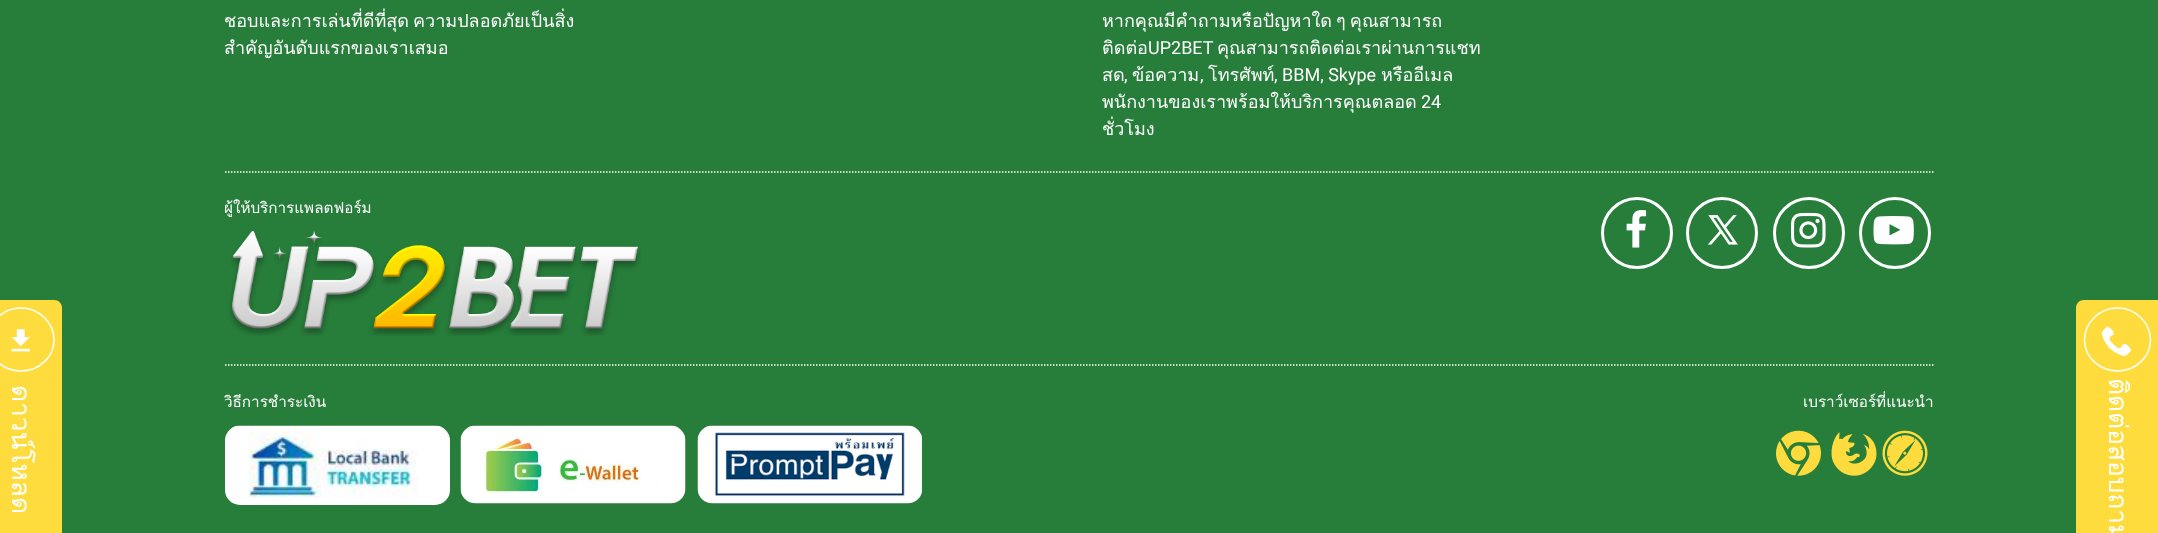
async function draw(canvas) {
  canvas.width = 2158
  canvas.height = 533
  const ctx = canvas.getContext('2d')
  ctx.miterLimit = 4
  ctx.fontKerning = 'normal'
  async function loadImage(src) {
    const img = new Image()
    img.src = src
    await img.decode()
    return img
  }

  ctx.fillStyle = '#277d3a'
  ctx.fillRect(0, 0, 2158, 533)
  ctx.wordSpacing = '-2px'
  ctx.font = '18px Loma'
  ctx.fillStyle = '#fff'
  ctx.fillText('ชอบและการเล่นที่ดีที่สุด ความปลอดภัยเป็นสิ่ง', 224, 27)
  ctx.wordSpacing = '0px'
  ctx.fillText('สำคัญอันดับแรกของเราเสมอ', 224, 54)
  ctx.wordSpacing = '-2px'
  ctx.fillText('หากคุณมีคำถามหรือปัญหาใด ๆ คุณสามารถ', 1102, 27)
  ctx.wordSpacing = '0px'
  ctx.fillText('ติดต่อ', 1102, 54)
  ctx.font = '18px Roboto'
  ctx.fillText('UP2BET', 1148, 54)
  ctx.font = '18px Loma'
  ctx.fillText('คุณสามารถติดต่อเราผ่านการแชท', 1217, 54)
  ctx.fillText('สด', 1102, 81)
  ctx.font = '18px Roboto'
  ctx.fillText(',', 1124, 81)
  ctx.font = '18px Loma'
  ctx.fillText('ข้อความ', 1132, 81)
  ctx.fillText('โทรศัพท์', 1208, 81)
  ctx.font = '18px Roboto'
  ctx.fillText(', BBM, Skype', 1274, 81)
  ctx.font = '18px Loma'
  ctx.fillText('หรืออีเมล', 1381, 81)
  ctx.font = '18px Roboto'
  ctx.fillText(',', 1200, 81)
  ctx.font = '18px Loma'
  ctx.fillText('พนักงานของเราพร้อมให้บริการคุณตลอด', 1102, 108)
  ctx.font = '18px Roboto'
  ctx.fillText('24', 1421, 108)
  ctx.font = '18px Loma'
  ctx.fillText('ชั่วโมง', 1102, 135)
  ctx.beginPath()
  ctx.moveTo(225, 172)
  ctx.lineTo(1935, 172)
  ctx.strokeStyle = '#fff'
  ctx.lineWidth = 1.5
  ctx.setLineDash([1.5, 1.5])
  ctx.stroke()
  ctx.font = '15.25px Loma'
  ctx.fillText('ผู้ให้บริการแพลตฟอร์ม', 224, 213)
  ctx.drawImage(await loadImage('image0.png'), 229, 230, 412, 106)
  ctx.beginPath()
  ctx.arc(1637, 233, 34.5, 0, 2 * Math.PI)
  ctx.lineWidth = 3
  ctx.setLineDash([])
  ctx.stroke()
  ctx.drawImage(await loadImage('image1.png'), 1626, 210, 21, 38)
  ctx.beginPath()
  ctx.arc(1722, 233, 34.5, 0, 2 * Math.PI)
  ctx.stroke()
  ctx.drawImage(await loadImage('image2.png'), 1707, 215, 31, 30)
  ctx.beginPath()
  ctx.arc(1809, 233, 34.5, 0, 2 * Math.PI)
  ctx.stroke()
  ctx.drawImage(await loadImage('image3.png'), 1791, 212, 35, 36)
  ctx.beginPath()
  ctx.arc(1895, 233, 34.5, 0, 2 * Math.PI)
  ctx.stroke()
  ctx.drawImage(await loadImage('image4.png'), 1873, 216, 41, 29)
  ctx.beginPath()
  ctx.moveTo(225, 365)
  ctx.lineTo(1935, 365)
  ctx.lineWidth = 1.5
  ctx.setLineDash([1.5, 1.5])
  ctx.stroke()
  ctx.fillText('วิธีการชำระเงิน', 224, 407)
  ctx.drawImage(await loadImage('image5.png'), 225, 425, 225, 80)
  ctx.drawImage(await loadImage('image6.png'), 460, 425, 226, 79)
  ctx.drawImage(await loadImage('image7.png'), 697, 425, 225, 79)
  ctx.fillText('เบราว์เซอร์ที่แนะนำ', 1803, 407)
  ctx.drawImage(await loadImage('image8.png'), 1776, 430, 45, 46)
  ctx.drawImage(await loadImage('image9.png'), 1831, 432, 46, 44)
  ctx.drawImage(await loadImage('image10.png'), 1882, 430, 46, 46)
  ctx.fillStyle = '#fedc3d'
  ctx.beginPath()
  ctx.moveTo(-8, 300)
  ctx.lineTo(54, 300)
  ctx.bezierCurveTo(58.5, 300, 62, 303.5, 62, 308)
  ctx.lineTo(62, 533)
  ctx.bezierCurveTo(62, 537.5, 58.5, 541, 54, 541)
  ctx.lineTo(-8, 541)
  ctx.closePath()
  ctx.fill()
  ctx.beginPath()
  ctx.moveTo(21, 308)
  ctx.bezierCurveTo(39, 308, 54, 322.5, 54, 340)
  ctx.bezierCurveTo(54, 357, 39, 371, 21, 371)
  ctx.bezierCurveTo(2.5, 371, -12, 357, -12, 340)
  ctx.bezierCurveTo(-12, 322.5, 2.5, 308, 21, 308)
  ctx.closePath()
  ctx.setLineDash([])
  ctx.stroke()
  ctx.drawImage(await loadImage('image11.png'), 11, 329, 19, 23)
  ctx.font = '26.25px Loma'
  ctx.fillStyle = '#fff'
  ctx.save()
  ctx.translate(12, 385)
  ctx.rotate(90 * Math.PI / 180)
  ctx.fillText('ดาวน์โหลด', 0, 0)
  ctx.restore()
  ctx.fillStyle = '#fedc3d'
  ctx.beginPath()
  ctx.moveTo(2084, 300)
  ctx.lineTo(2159, 300)
  ctx.lineTo(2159, 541)
  ctx.lineTo(2084, 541)
  ctx.bezierCurveTo(2079.5, 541, 2076, 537.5, 2076, 533)
  ctx.lineTo(2076, 308)
  ctx.bezierCurveTo(2076, 303.5, 2079.5, 300, 2084, 300)
  ctx.closePath()
  ctx.fill()
  ctx.beginPath()
  ctx.moveTo(2117.5, 308)
  ctx.bezierCurveTo(2135.5, 308, 2150.5, 322.5, 2150.5, 340)
  ctx.bezierCurveTo(2150.5, 357, 2135.5, 371, 2117.5, 371)
  ctx.bezierCurveTo(2099.5, 371, 2084.5, 357, 2084.5, 340)
  ctx.bezierCurveTo(2084.5, 322.5, 2099.5, 308, 2117.5, 308)
  ctx.closePath()
  ctx.stroke()
  ctx.drawImage(await loadImage('image12.png'), 2101, 326, 30, 30)
  ctx.fillStyle = '#fff'
  ctx.save()
  ctx.translate(2109, 378)
  ctx.rotate(90 * Math.PI / 180)
  ctx.fillText('ติดต่อสอบถาม', 0, 0)
  ctx.restore()
}

draw(document.querySelector('canvas'))
